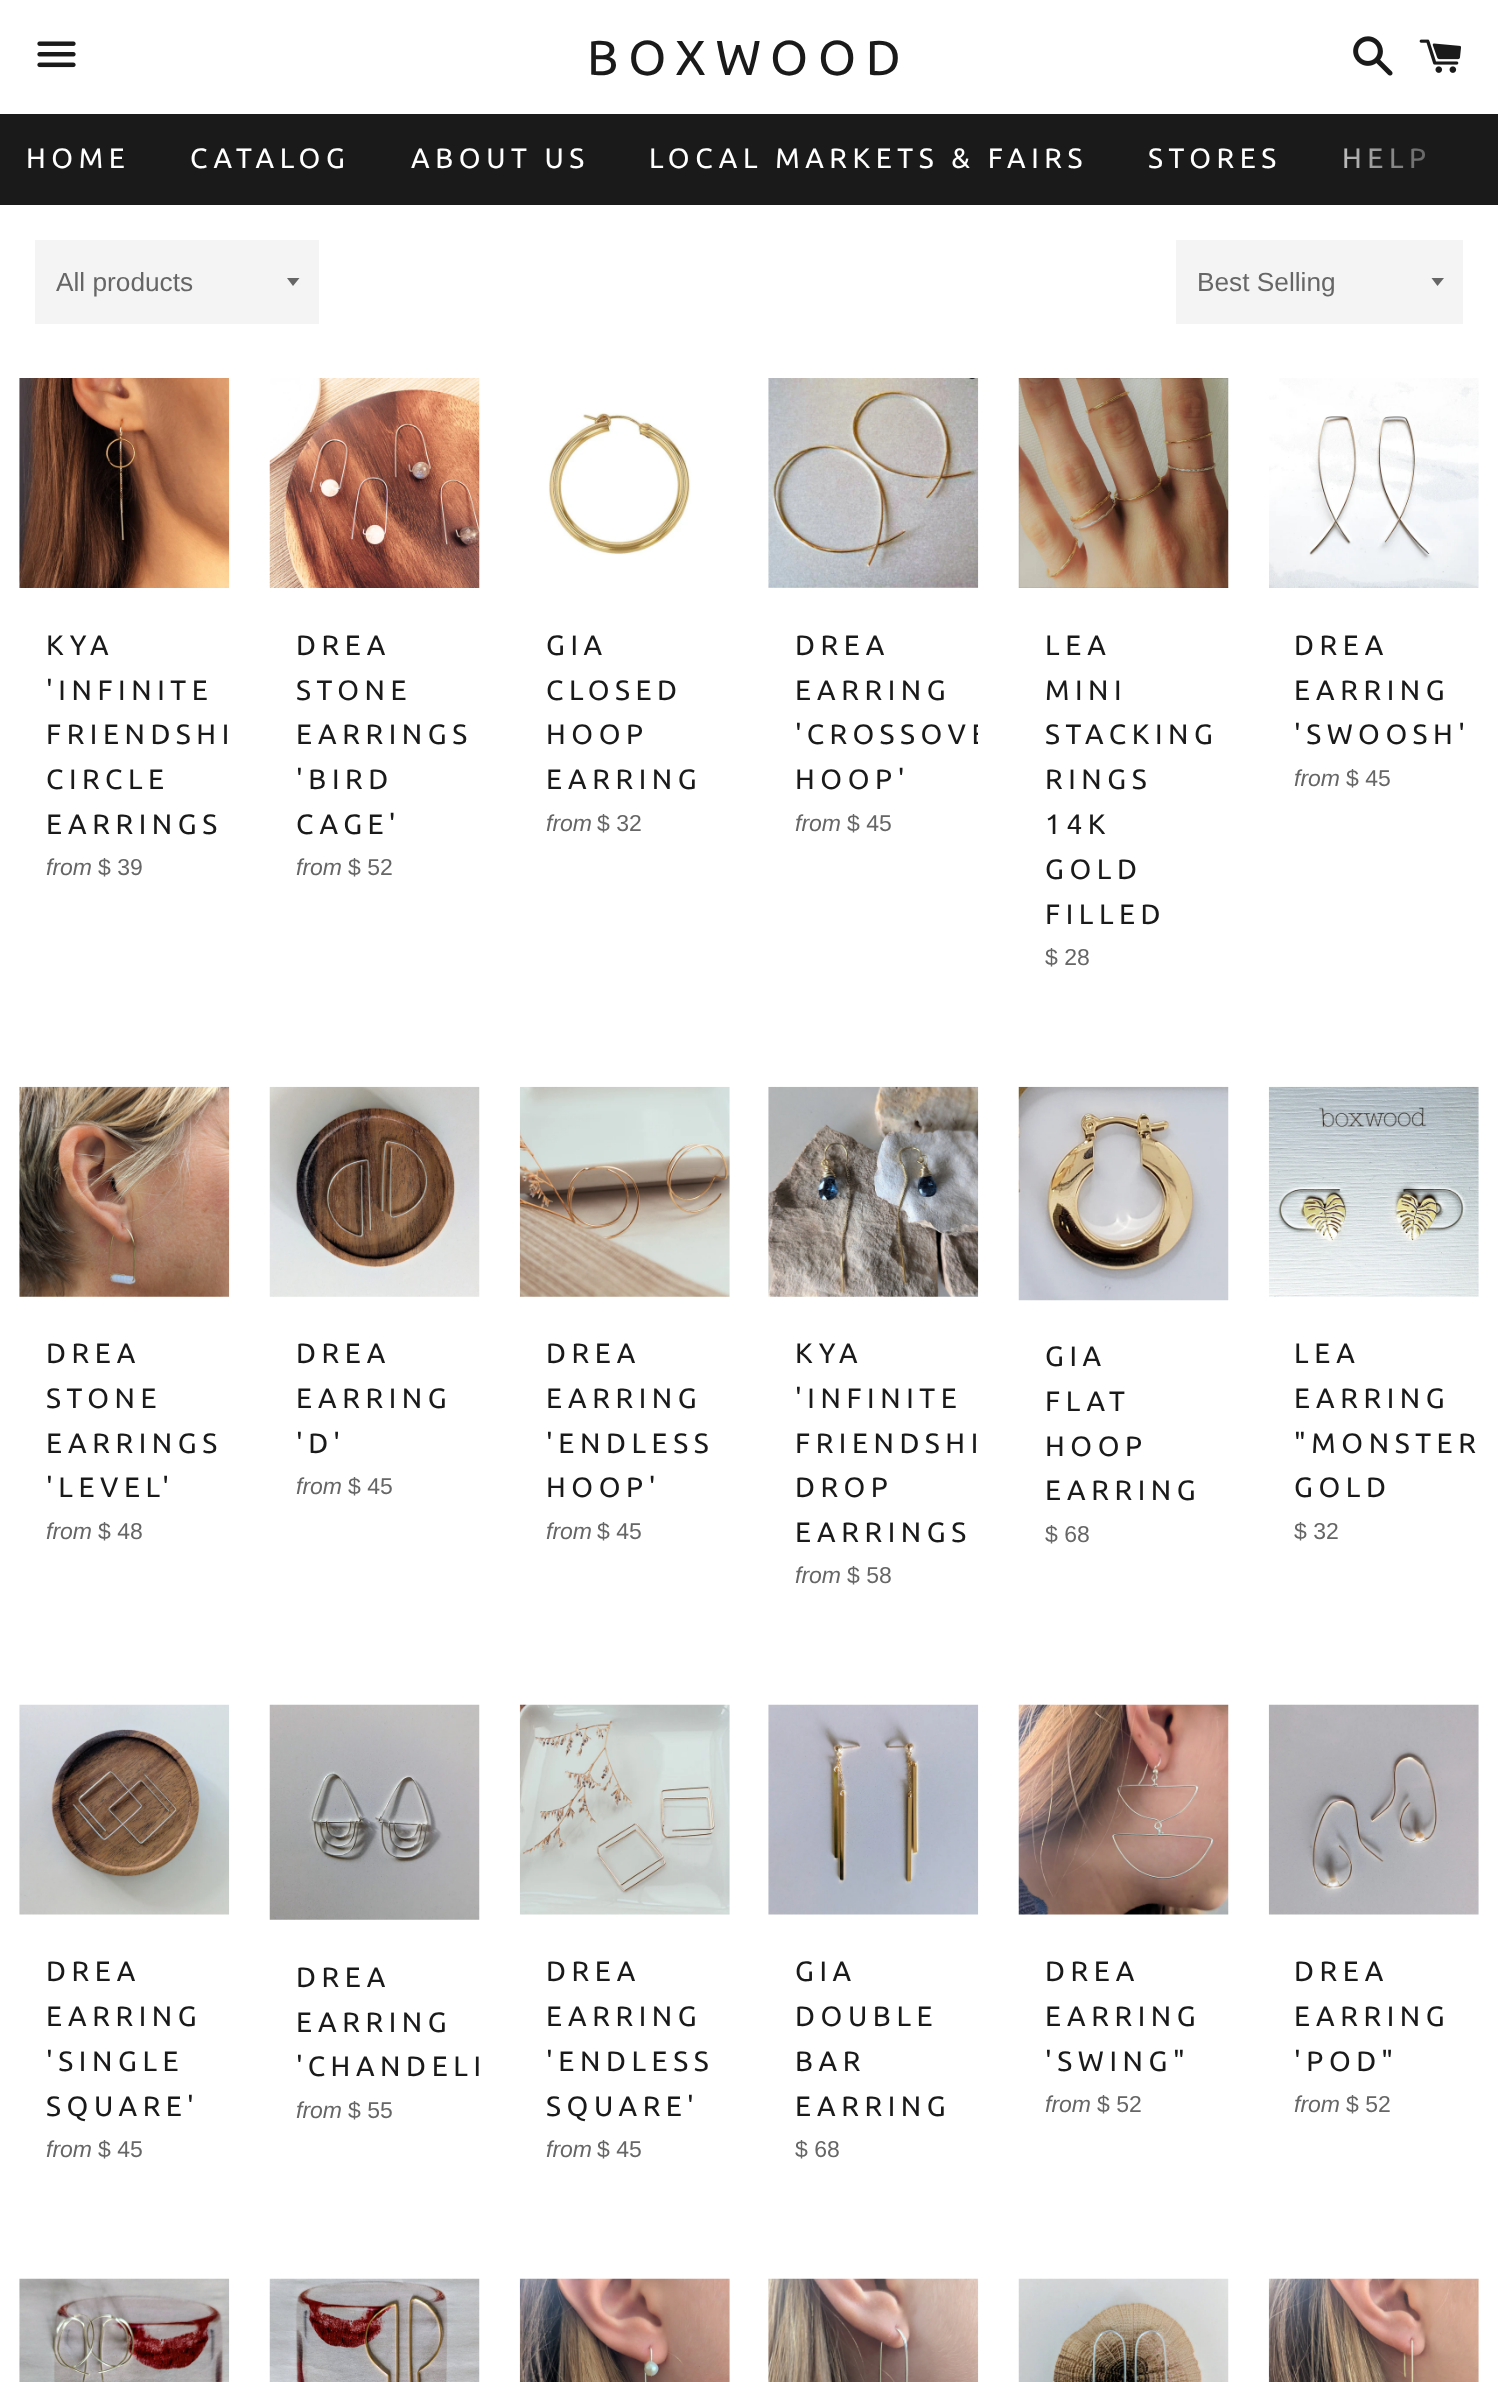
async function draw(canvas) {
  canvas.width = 1498
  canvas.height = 2382
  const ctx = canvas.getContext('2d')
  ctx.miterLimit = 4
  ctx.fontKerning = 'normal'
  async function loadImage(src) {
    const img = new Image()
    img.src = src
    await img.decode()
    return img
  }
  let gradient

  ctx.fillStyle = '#fff'
  ctx.fillRect(0, 0, 1498, 2382)
  ctx.drawImage(await loadImage('image0.png'), 37, 41, 39, 27)
  ctx.letterSpacing = '9.75px'
  ctx.font = '49px Ubuntu'
  ctx.fillStyle = '#1a1a1a'
  ctx.fillText('BOXWOOD', 587, 75)
  ctx.drawImage(await loadImage('image1.png'), 1353, 36, 40, 40)
  ctx.drawImage(await loadImage('image2.png'), 1419, 39, 42, 34)
  ctx.fillRect(0, 114, 1497, 91)
  ctx.letterSpacing = '5.6px'
  ctx.font = '28px Ubuntu'
  ctx.fillStyle = '#fff'
  ctx.fillText('HELP', 1342, 168)
  gradient = ctx.createLinearGradient(1279, 159, 1498, 159)
  gradient.addColorStop(0, '#1a1a1a00')
  gradient.addColorStop(1, '#1a1a1a')
  ctx.fillStyle = gradient
  ctx.fillRect(1344, 114, 154, 91)
  ctx.fillStyle = '#fff'
  ctx.fillText('HOME', 26, 168)
  ctx.fillText('CATALOG', 190, 168)
  ctx.fillText('ABOUT US', 411, 168)
  ctx.fillText('LOCAL MARKETS & FAIRS', 649, 168)
  ctx.fillText('STORES', 1148, 168)
  ctx.fillStyle = '#f4f4f4'
  ctx.fillRect(35, 240, 284, 84)
  ctx.fillStyle = '#666'
  ctx.beginPath()
  ctx.moveTo(287, 278)
  ctx.lineTo(293, 286)
  ctx.lineTo(299.5, 278)
  ctx.closePath()
  ctx.fill()
  ctx.letterSpacing = '0px'
  ctx.font = '26.25px Liberation Sans'
  ctx.fillText('All products', 56, 291)
  ctx.fillStyle = '#f4f4f4'
  ctx.fillRect(1176, 240, 287, 84)
  ctx.fillStyle = '#666'
  ctx.beginPath()
  ctx.moveTo(1431.5, 278)
  ctx.lineTo(1437.5, 286)
  ctx.lineTo(1444, 278)
  ctx.closePath()
  ctx.fill()
  ctx.fillText('Best Selling', 1197, 291)
  ctx.drawImage(await loadImage('image3.png'), 19, 378, 211, 210)
  ctx.letterSpacing = '5.6px'
  ctx.font = '28px Ubuntu'
  ctx.fillStyle = '#1a1a1a'
  ctx.fillText('KYA', 46, 655)
  ctx.fillText('\'INFINITE', 46, 700)
  ctx.fillText('FRIENDSHI', 46, 744)
  ctx.fillText('CIRCLE', 46, 789)
  ctx.fillText('EARRINGS', 46, 834)
  ctx.letterSpacing = '0px'
  ctx.font = 'italic 23px Liberation Sans'
  ctx.fillStyle = '#666'
  ctx.fillText('from', 46, 875)
  ctx.font = '23px Liberation Sans'
  ctx.fillText('$ 39', 98, 875)
  ctx.drawImage(await loadImage('image4.png'), 269, 378, 211, 210)
  ctx.letterSpacing = '5.6px'
  ctx.font = '28px Ubuntu'
  ctx.fillStyle = '#1a1a1a'
  ctx.fillText('DREA', 296, 655)
  ctx.fillText('STONE', 296, 700)
  ctx.fillText('EARRINGS', 296, 744)
  ctx.fillText('\'BIRD', 296, 789)
  ctx.fillText('CAGE\'', 296, 834)
  ctx.letterSpacing = '0px'
  ctx.font = 'italic 23px Liberation Sans'
  ctx.fillStyle = '#666'
  ctx.fillText('from', 296, 875)
  ctx.font = '23px Liberation Sans'
  ctx.fillText('$ 52', 348, 875)
  ctx.drawImage(await loadImage('image5.png'), 548, 412, 143, 143)
  ctx.letterSpacing = '5.6px'
  ctx.font = '28px Ubuntu'
  ctx.fillStyle = '#1a1a1a'
  ctx.fillText('GIA', 546, 655)
  ctx.fillText('CLOSED', 546, 700)
  ctx.fillText('HOOP', 546, 744)
  ctx.fillText('EARRING', 546, 789)
  ctx.letterSpacing = '0px'
  ctx.font = 'italic 23px Liberation Sans'
  ctx.fillStyle = '#666'
  ctx.fillText('from', 546, 831)
  ctx.font = '23px Liberation Sans'
  ctx.fillText('$ 32', 597, 831)
  ctx.drawImage(await loadImage('image6.png'), 768, 378, 211, 210)
  ctx.letterSpacing = '5.6px'
  ctx.font = '28px Ubuntu'
  ctx.fillStyle = '#1a1a1a'
  ctx.fillText('DREA', 795, 655)
  ctx.fillText('EARRING', 795, 700)
  ctx.save()
  ctx.beginPath()
  ctx.rect(768, 378, 210, 464)
  ctx.clip()
  ctx.fillText('\'CROSSOVE', 795, 744)
  ctx.restore()
  ctx.fillText('HOOP\'', 795, 789)
  ctx.letterSpacing = '0px'
  ctx.font = 'italic 23px Liberation Sans'
  ctx.fillStyle = '#666'
  ctx.fillText('from', 795, 831)
  ctx.font = '23px Liberation Sans'
  ctx.fillText('$ 45', 847, 831)
  ctx.drawImage(await loadImage('image7.png'), 1018, 378, 211, 210)
  ctx.letterSpacing = '5.6px'
  ctx.font = '28px Ubuntu'
  ctx.fillStyle = '#1a1a1a'
  ctx.fillText('LEA', 1045, 655)
  ctx.fillText('MINI', 1045, 700)
  ctx.fillText('STACKING', 1045, 744)
  ctx.fillText('RINGS', 1045, 789)
  ctx.fillText('14K', 1045, 834)
  ctx.fillText('GOLD', 1045, 879)
  ctx.fillText('FILLED', 1045, 924)
  ctx.letterSpacing = '0px'
  ctx.font = '23px Liberation Sans'
  ctx.fillStyle = '#666'
  ctx.fillText('$ 28', 1045, 965)
  ctx.drawImage(await loadImage('image8.png'), 1269, 378, 210, 210)
  ctx.letterSpacing = '5.6px'
  ctx.font = '28px Ubuntu'
  ctx.fillStyle = '#1a1a1a'
  ctx.fillText('DREA', 1294, 655)
  ctx.fillText('EARRING', 1294, 700)
  ctx.fillText('\'SWOOSH\'', 1294, 744)
  ctx.letterSpacing = '0px'
  ctx.font = 'italic 23px Liberation Sans'
  ctx.fillStyle = '#666'
  ctx.fillText('from', 1294, 786)
  ctx.font = '23px Liberation Sans'
  ctx.fillText('$ 45', 1346, 786)
  ctx.drawImage(await loadImage('image9.png'), 19, 1086, 211, 211)
  ctx.letterSpacing = '5.6px'
  ctx.font = '28px Ubuntu'
  ctx.fillStyle = '#1a1a1a'
  ctx.fillText('DREA', 46, 1363)
  ctx.fillText('STONE', 46, 1408)
  ctx.fillText('EARRINGS', 46, 1453)
  ctx.fillText('\'LEVEL\'', 46, 1497)
  ctx.letterSpacing = '0px'
  ctx.font = 'italic 23px Liberation Sans'
  ctx.fillStyle = '#666'
  ctx.fillText('from', 46, 1539)
  ctx.font = '23px Liberation Sans'
  ctx.fillText('$ 48', 98, 1539)
  ctx.drawImage(await loadImage('image10.png'), 269, 1086, 211, 211)
  ctx.letterSpacing = '5.6px'
  ctx.font = '28px Ubuntu'
  ctx.fillStyle = '#1a1a1a'
  ctx.fillText('DREA', 296, 1363)
  ctx.fillText('EARRING', 296, 1408)
  ctx.fillText('\'D\'', 296, 1453)
  ctx.letterSpacing = '0px'
  ctx.font = 'italic 23px Liberation Sans'
  ctx.fillStyle = '#666'
  ctx.fillText('from', 296, 1494)
  ctx.font = '23px Liberation Sans'
  ctx.fillText('$ 45', 348, 1494)
  ctx.drawImage(await loadImage('image11.png'), 519, 1086, 211, 211)
  ctx.letterSpacing = '5.6px'
  ctx.font = '28px Ubuntu'
  ctx.fillStyle = '#1a1a1a'
  ctx.fillText('DREA', 546, 1363)
  ctx.fillText('EARRING', 546, 1408)
  ctx.fillText('\'ENDLESS', 546, 1453)
  ctx.fillText('HOOP\'', 546, 1497)
  ctx.letterSpacing = '0px'
  ctx.font = 'italic 23px Liberation Sans'
  ctx.fillStyle = '#666'
  ctx.fillText('from', 546, 1539)
  ctx.font = '23px Liberation Sans'
  ctx.fillText('$ 45', 597, 1539)
  ctx.drawImage(await loadImage('image12.png'), 768, 1086, 211, 211)
  ctx.letterSpacing = '5.6px'
  ctx.font = '28px Ubuntu'
  ctx.fillStyle = '#1a1a1a'
  ctx.fillText('KYA', 795, 1363)
  ctx.fillText('\'INFINITE', 795, 1408)
  ctx.fillText('FRIENDSHI', 795, 1453)
  ctx.fillText('DROP', 795, 1497)
  ctx.fillText('EARRINGS', 795, 1542)
  ctx.letterSpacing = '0px'
  ctx.font = 'italic 23px Liberation Sans'
  ctx.fillStyle = '#666'
  ctx.fillText('from', 795, 1583)
  ctx.font = '23px Liberation Sans'
  ctx.fillText('$ 58', 847, 1583)
  ctx.drawImage(await loadImage('image13.png'), 1018, 1086, 211, 215)
  ctx.letterSpacing = '5.6px'
  ctx.font = '28px Ubuntu'
  ctx.fillStyle = '#1a1a1a'
  ctx.fillText('GIA', 1045, 1366)
  ctx.fillText('FLAT', 1045, 1411)
  ctx.fillText('HOOP', 1045, 1456)
  ctx.fillText('EARRING', 1045, 1500)
  ctx.letterSpacing = '0px'
  ctx.font = '23px Liberation Sans'
  ctx.fillStyle = '#666'
  ctx.fillText('$ 68', 1045, 1542)
  ctx.drawImage(await loadImage('image14.png'), 1268, 1086, 211, 211)
  ctx.letterSpacing = '5.6px'
  ctx.font = '28px Ubuntu'
  ctx.fillStyle = '#1a1a1a'
  ctx.fillText('LEA', 1294, 1363)
  ctx.fillText('EARRING', 1294, 1408)
  ctx.fillText('"MONSTER', 1294, 1453)
  ctx.fillText('GOLD', 1294, 1497)
  ctx.letterSpacing = '0px'
  ctx.font = '23px Liberation Sans'
  ctx.fillStyle = '#666'
  ctx.fillText('$ 32', 1294, 1539)
  ctx.drawImage(await loadImage('image15.png'), 19, 1704, 211, 211)
  ctx.letterSpacing = '5.6px'
  ctx.font = '28px Ubuntu'
  ctx.fillStyle = '#1a1a1a'
  ctx.fillText('DREA', 46, 1981)
  ctx.fillText('EARRING', 46, 2026)
  ctx.fillText('\'SINGLE', 46, 2071)
  ctx.fillText('SQUARE\'', 46, 2116)
  ctx.letterSpacing = '0px'
  ctx.font = 'italic 23px Liberation Sans'
  ctx.fillStyle = '#666'
  ctx.fillText('from', 46, 2157)
  ctx.font = '23px Liberation Sans'
  ctx.fillText('$ 45', 98, 2157)
  ctx.drawImage(await loadImage('image16.png'), 269, 1704, 211, 216)
  ctx.letterSpacing = '5.6px'
  ctx.font = '28px Ubuntu'
  ctx.fillStyle = '#1a1a1a'
  ctx.fillText('DREA', 296, 1987)
  ctx.fillText('EARRING', 296, 2032)
  ctx.fillText('\'CHANDELI', 296, 2076)
  ctx.letterSpacing = '0px'
  ctx.font = 'italic 23px Liberation Sans'
  ctx.fillStyle = '#666'
  ctx.fillText('from', 296, 2118)
  ctx.font = '23px Liberation Sans'
  ctx.fillText('$ 55', 348, 2118)
  ctx.drawImage(await loadImage('image17.png'), 519, 1704, 211, 211)
  ctx.letterSpacing = '5.6px'
  ctx.font = '28px Ubuntu'
  ctx.fillStyle = '#1a1a1a'
  ctx.fillText('DREA', 546, 1981)
  ctx.fillText('EARRING', 546, 2026)
  ctx.fillText('\'ENDLESS', 546, 2071)
  ctx.fillText('SQUARE\'', 546, 2116)
  ctx.letterSpacing = '0px'
  ctx.font = 'italic 23px Liberation Sans'
  ctx.fillStyle = '#666'
  ctx.fillText('from', 546, 2157)
  ctx.font = '23px Liberation Sans'
  ctx.fillText('$ 45', 597, 2157)
  ctx.drawImage(await loadImage('image18.png'), 768, 1704, 211, 211)
  ctx.letterSpacing = '5.6px'
  ctx.font = '28px Ubuntu'
  ctx.fillStyle = '#1a1a1a'
  ctx.fillText('GIA', 795, 1981)
  ctx.fillText('DOUBLE', 795, 2026)
  ctx.fillText('BAR', 795, 2071)
  ctx.fillText('EARRING', 795, 2116)
  ctx.letterSpacing = '0px'
  ctx.font = '23px Liberation Sans'
  ctx.fillStyle = '#666'
  ctx.fillText('$ 68', 795, 2157)
  ctx.drawImage(await loadImage('image19.png'), 1018, 1704, 211, 211)
  ctx.letterSpacing = '5.6px'
  ctx.font = '28px Ubuntu'
  ctx.fillStyle = '#1a1a1a'
  ctx.fillText('DREA', 1045, 1981)
  ctx.fillText('EARRING', 1045, 2026)
  ctx.fillText('\'SWING"', 1045, 2071)
  ctx.letterSpacing = '0px'
  ctx.font = 'italic 23px Liberation Sans'
  ctx.fillStyle = '#666'
  ctx.fillText('from', 1045, 2112)
  ctx.font = '23px Liberation Sans'
  ctx.fillText('$ 52', 1097, 2112)
  ctx.drawImage(await loadImage('image20.png'), 1268, 1704, 211, 211)
  ctx.letterSpacing = '5.6px'
  ctx.font = '28px Ubuntu'
  ctx.fillStyle = '#1a1a1a'
  ctx.fillText('DREA', 1294, 1981)
  ctx.fillText('EARRING', 1294, 2026)
  ctx.fillText('\'POD"', 1294, 2071)
  ctx.letterSpacing = '0px'
  ctx.font = 'italic 23px Liberation Sans'
  ctx.fillStyle = '#666'
  ctx.fillText('from', 1294, 2112)
  ctx.font = '23px Liberation Sans'
  ctx.fillText('$ 52', 1346, 2112)
  ctx.drawImage(await loadImage('image21.png'), 19, 2278, 211, 104)
  ctx.drawImage(await loadImage('image22.png'), 269, 2278, 211, 104)
  ctx.drawImage(await loadImage('image23.png'), 519, 2278, 211, 104)
  ctx.drawImage(await loadImage('image24.png'), 768, 2278, 211, 104)
  ctx.drawImage(await loadImage('image25.png'), 1018, 2278, 211, 104)
  ctx.drawImage(await loadImage('image26.png'), 1268, 2278, 211, 104)
}

draw(document.querySelector('canvas'))
